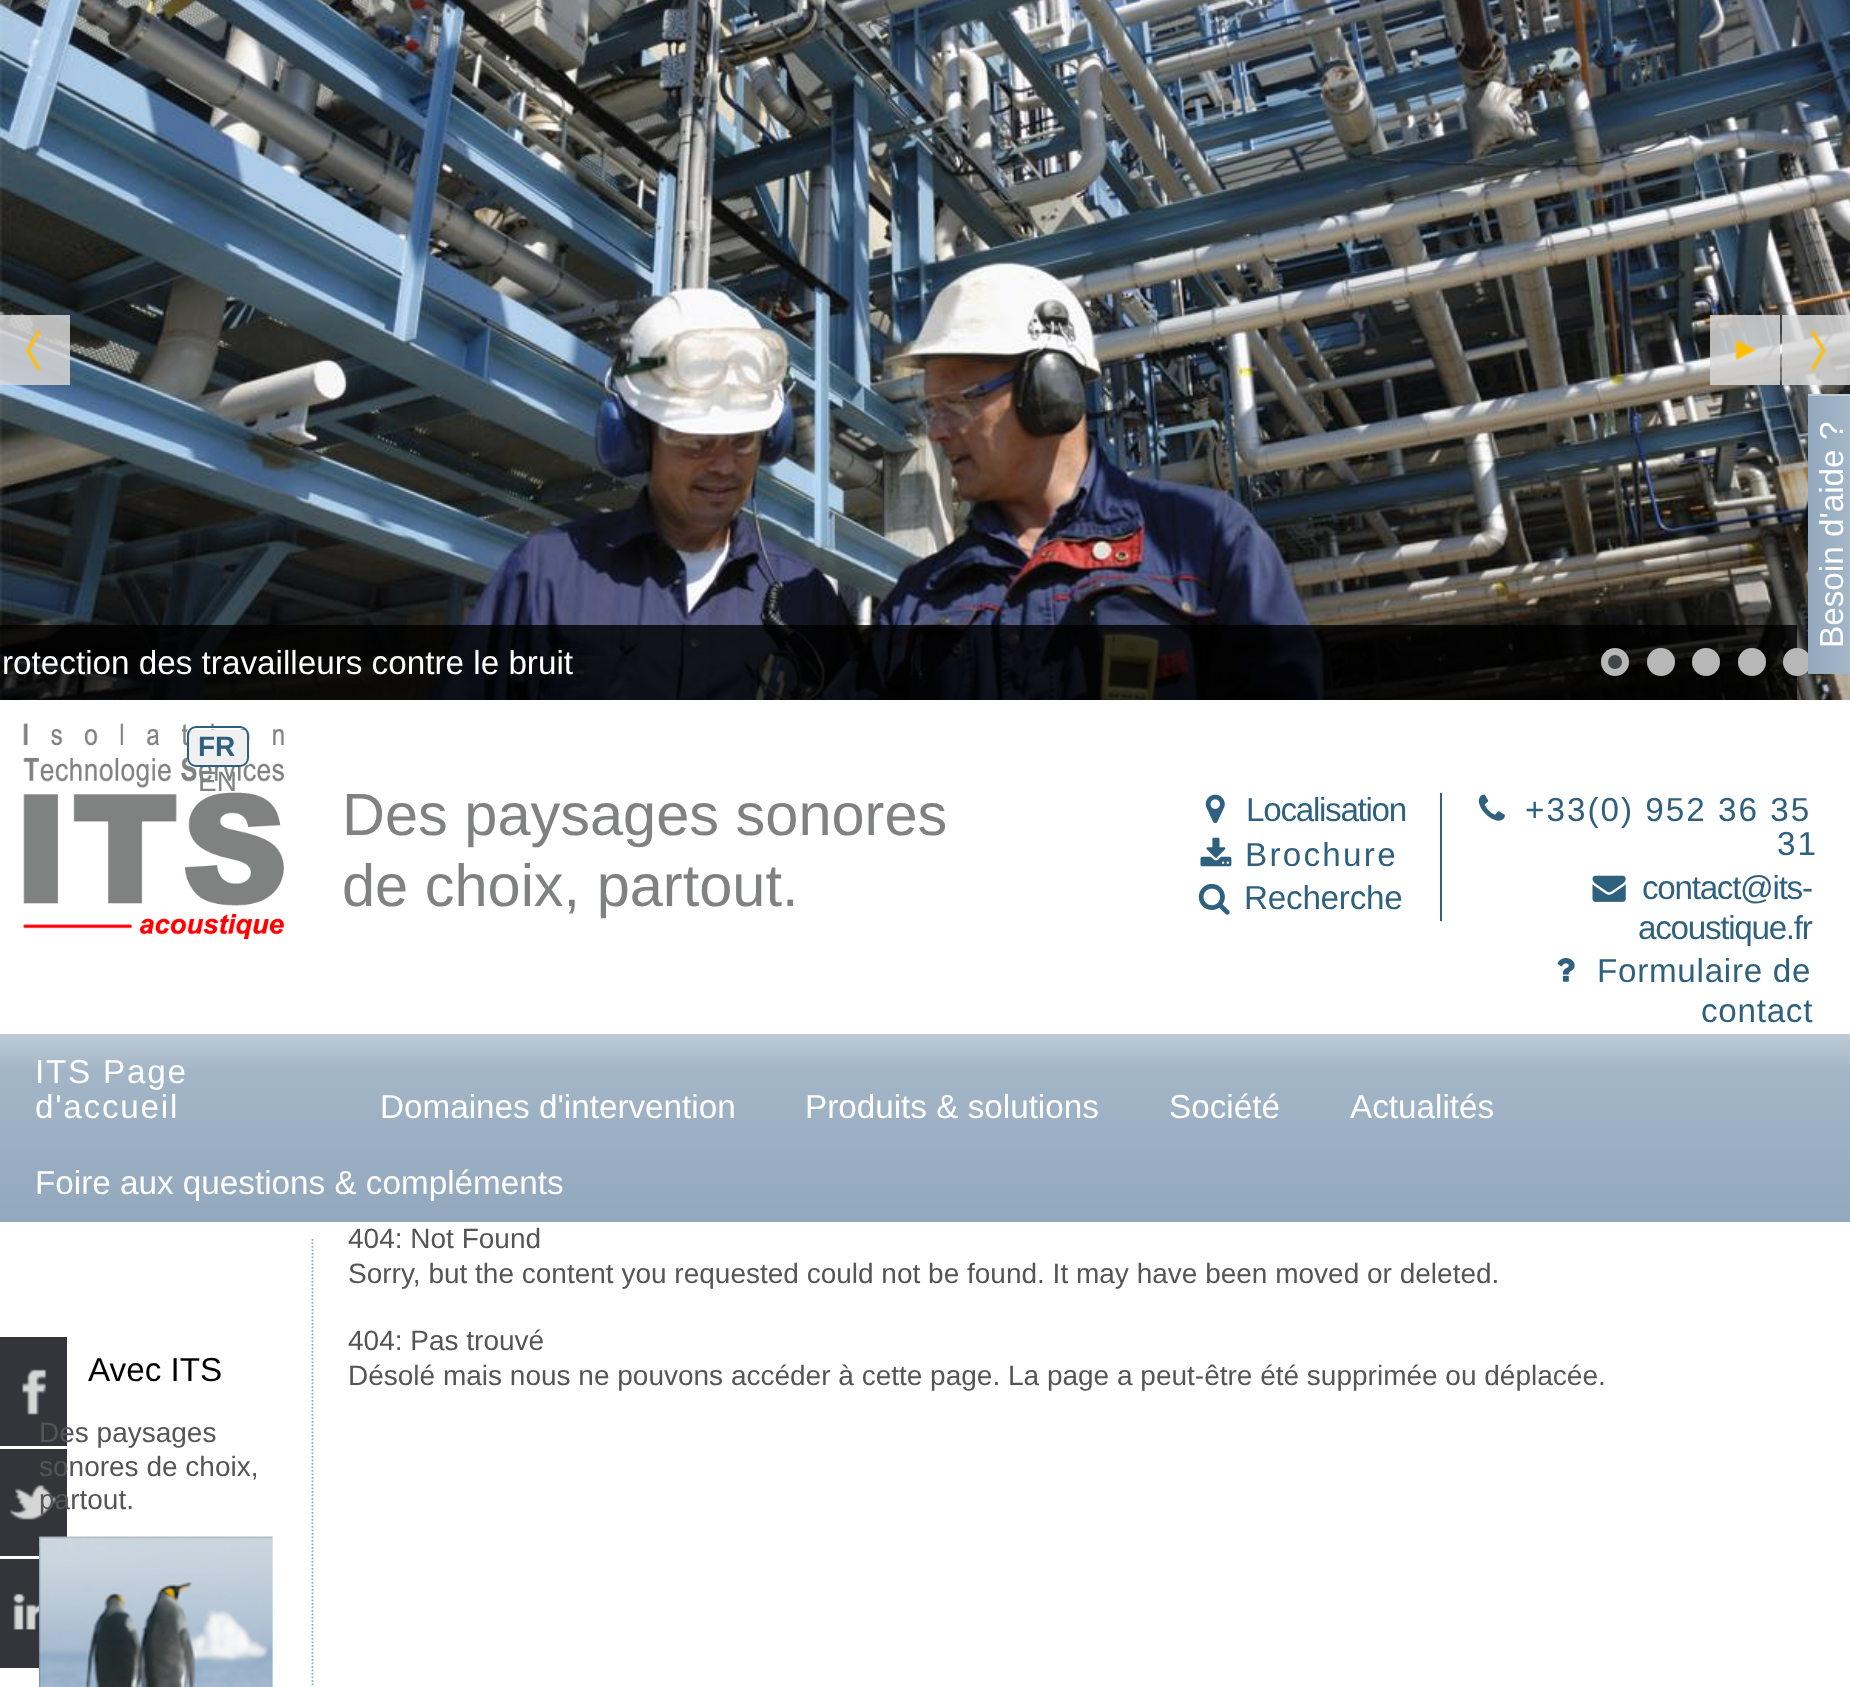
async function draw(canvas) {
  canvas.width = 1850
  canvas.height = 1687
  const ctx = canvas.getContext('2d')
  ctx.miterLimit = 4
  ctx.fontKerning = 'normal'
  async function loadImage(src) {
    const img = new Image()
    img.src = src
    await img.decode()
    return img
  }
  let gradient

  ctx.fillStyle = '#fff'
  ctx.fillRect(0, 0, 1850, 1687)
  ctx.drawImage(await loadImage('image0.png'), 0, 0, 1850, 700)
  ctx.fillStyle = '#0000004d'
  ctx.filter = 'blur(4.5px)'
  ctx.beginPath()
  ctx.rect(1689, 509, 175, 49)
  ctx.fill()
  ctx.filter = 'none'
  ctx.fillStyle = '#000000cc'
  ctx.fillRect(0, 625, 1797, 75)
  ctx.fillStyle = '#b7b7b7'
  ctx.beginPath()
  ctx.arc(1797, 662, 14, 0, 2 * Math.PI)
  ctx.fill()
  gradient = ctx.createLinearGradient(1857, 535, 1808, 535)
  gradient.addColorStop(0.01, '#becad6')
  gradient.addColorStop(0.19, '#a3b6c7')
  gradient.addColorStop(1, '#92a8be')
  ctx.fillStyle = gradient
  ctx.fillRect(1808, 396, 42, 278)
  ctx.fillStyle = '#becad6'
  ctx.fillRect(1808, 394, 42, 2)
  ctx.font = '33.25px Liberation Sans'
  ctx.fillStyle = '#fff'
  ctx.save()
  ctx.translate(1843, 440)
  ctx.rotate(-90 * Math.PI / 180)
  ctx.fillText('?', 0, 0)
  ctx.restore()
  ctx.save()
  ctx.translate(1843, 648)
  ctx.rotate(-90 * Math.PI / 180)
  ctx.fillText('Besoin d\'aide', 0, 0)
  ctx.restore()
  ctx.fillStyle = '#d8d8d8d9'
  ctx.fillRect(0, 315, 70, 70)
  ctx.drawImage(await loadImage('image1.png'), 25, 330, 17, 42)
  ctx.fillRect(1710, 315, 70, 70)
  ctx.drawImage(await loadImage('image2.png'), 1735, 339, 21, 22)
  ctx.fillRect(1782, 315, 68, 70)
  ctx.drawImage(await loadImage('image3.png'), 1809, 330, 17, 42)
  ctx.fillStyle = '#fff'
  ctx.fillText('rotection des travailleurs contre le bruit', 2, 674)
  ctx.fillStyle = '#b7b7b7'
  ctx.beginPath()
  ctx.arc(1615, 662, 14, 0, 2 * Math.PI)
  ctx.fill()
  ctx.fillStyle = '#434648'
  ctx.beginPath()
  ctx.arc(1615, 662, 7, 0, 2 * Math.PI)
  ctx.fill()
  ctx.fillStyle = '#b7b7b7'
  ctx.beginPath()
  ctx.arc(1661, 662, 14, 0, 2 * Math.PI)
  ctx.fill()
  ctx.beginPath()
  ctx.arc(1706, 662, 14, 0, 2 * Math.PI)
  ctx.fill()
  ctx.beginPath()
  ctx.arc(1752, 662, 14, 0, 2 * Math.PI)
  ctx.fill()
  ctx.drawImage(await loadImage('image4.png'), 23, 723, 261, 216)
  ctx.fillStyle = '#2f617f'
  ctx.fillRect(1440, 793, 2, 128)
  ctx.fillStyle = '#f0f0f0'
  ctx.fillRect(187, 730, 62, 35)
  ctx.beginPath()
  ctx.roundRect(188, 727, 60, 39, 8)
  ctx.strokeStyle = '#2f617f'
  ctx.lineWidth = 2
  ctx.stroke()
  ctx.font = 'bold 28px Liberation Sans'
  ctx.fillStyle = '#2f617f'
  ctx.fillText('FR', 198, 756)
  ctx.font = '28px Liberation Sans'
  ctx.fillStyle = '#808181'
  ctx.fillText('EN', 198, 791)
  ctx.drawImage(await loadImage('image5.png'), 1205, 794, 20, 30)
  ctx.letterSpacing = '-1.3px'
  ctx.font = '33.25px Liberation Sans'
  ctx.fillStyle = '#2f617f'
  ctx.fillText('Localisation', 1246, 821)
  ctx.drawImage(await loadImage('image6.png'), 1200, 837, 32, 30)
  ctx.letterSpacing = '2.25px'
  ctx.fillText('Brochure', 1245, 866)
  ctx.drawImage(await loadImage('image7.png'), 1198, 883, 32, 32)
  ctx.letterSpacing = '-0.25px'
  ctx.fillText('Recherche', 1244, 909)
  ctx.drawImage(await loadImage('image8.png'), 1478, 794, 27, 27)
  ctx.letterSpacing = '2px'
  ctx.fillText('+33(0) 952 36 35', 1525, 821)
  ctx.fillText('31', 1777, 855)
  ctx.drawImage(await loadImage('image9.png'), 1592, 875, 34, 27)
  ctx.letterSpacing = '-1.3px'
  ctx.fillText('contact@its-', 1642, 899)
  ctx.fillText('acoustique.fr', 1638, 939)
  ctx.drawImage(await loadImage('image10.png'), 1557, 958, 18, 24)
  ctx.letterSpacing = '0.7px'
  ctx.fillText('Formulaire de', 1597, 982)
  ctx.fillText('contact', 1701, 1022)
  ctx.letterSpacing = '0px'
  ctx.font = '59.5px Liberation Sans'
  ctx.fillStyle = '#808181'
  ctx.fillText('Des paysages sonores', 342, 835)
  ctx.fillText('de choix, partout.', 342, 906)
  gradient = ctx.createLinearGradient(926, 1034, 926, 1222)
  gradient.addColorStop(0.01, '#becad6')
  gradient.addColorStop(0.19, '#a3b6c7')
  gradient.addColorStop(1, '#92a8be')
  ctx.fillStyle = gradient
  ctx.fillRect(0, 1034, 1850, 188)
  ctx.letterSpacing = '1.75px'
  ctx.font = '33.25px Liberation Sans'
  ctx.fillStyle = '#fff'
  ctx.fillText('ITS Page', 35, 1083)
  ctx.fillText('d\'accueil', 35, 1118)
  ctx.letterSpacing = '0px'
  ctx.fillText('Domaines d\'intervention', 380, 1118)
  ctx.fillText('Produits & solutions', 805, 1118)
  ctx.fillText('Société', 1169, 1118)
  ctx.fillText('Actualités', 1350, 1118)
  ctx.fillText('Foire aux questions & compléments', 35, 1194)
  ctx.fillStyle = '#33353b'
  ctx.fillRect(0, 1337, 67, 109)
  ctx.drawImage(await loadImage('image11.png'), 22, 1369, 25, 46)
  ctx.fillRect(0, 1449, 67, 107)
  ctx.drawImage(await loadImage('image12.png'), 10, 1485, 47, 35)
  ctx.fillRect(0, 1559, 39, 109)
  ctx.drawImage(await loadImage('image13.png'), 13, 1593, 26, 37)
  ctx.font = '28px Liberation Sans'
  ctx.fillStyle = '#555'
  ctx.fillText('404: Not Found', 348, 1248)
  ctx.fillText('Sorry, but the content you requested could not be found. It may have been moved or deleted.', 348, 1283)
  ctx.fillText('404: Pas trouvé', 348, 1350)
  ctx.fillText('Désolé mais nous ne pouvons accéder à cette page. La page a peut-être été supprimée ou déplacée.', 348, 1385)
  ctx.beginPath()
  ctx.moveTo(312.5, 1239)
  ctx.lineTo(312.5, 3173)
  ctx.strokeStyle = '#94a9bf'
  ctx.lineWidth = 1.8
  ctx.setLineDash([1.75, 1.75])
  ctx.stroke()
  ctx.font = '33.25px Liberation Sans'
  ctx.fillStyle = '#000'
  ctx.fillText('Avec ITS', 88, 1381)
  ctx.font = '28px Liberation Sans'
  ctx.fillStyle = '#555'
  ctx.fillText('Des paysages', 39, 1442)
  ctx.fillText('sonores de choix,', 39, 1476)
  ctx.fillText('partout.', 39, 1509)
  ctx.drawImage(await loadImage('image14.png'), 39, 1536, 234, 151)
}

draw(document.querySelector('canvas'))
